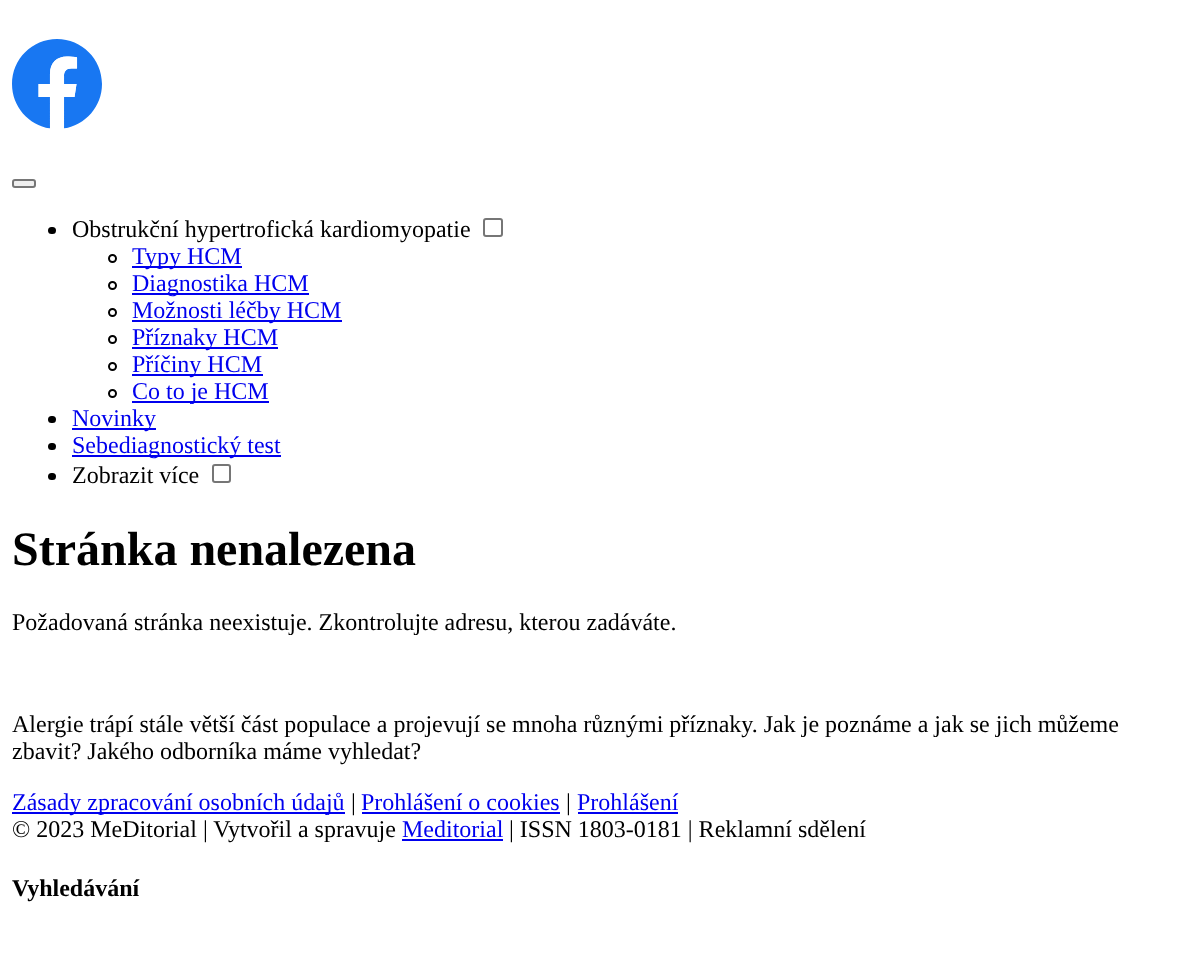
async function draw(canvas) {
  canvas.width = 1178
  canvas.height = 974
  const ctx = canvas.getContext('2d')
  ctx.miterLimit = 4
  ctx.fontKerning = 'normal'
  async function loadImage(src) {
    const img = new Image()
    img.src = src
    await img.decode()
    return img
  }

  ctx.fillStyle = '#fff'
  ctx.fillRect(0, 0, 1178, 974)
  ctx.drawImage(await loadImage('image0.png'), 12, 39, 90, 90)
  ctx.fillStyle = '#efefef'
  ctx.beginPath()
  ctx.roundRect(13, 180, 22, 7, 2)
  ctx.fill()
  ctx.strokeStyle = '#767676'
  ctx.lineWidth = 2
  ctx.stroke()
  ctx.fillStyle = '#000'
  ctx.beginPath()
  ctx.roundRect(48, 227, 8, 7, 3.5)
  ctx.fill()
  ctx.font = '24px Liberation Serif'
  ctx.fillText('Obstrukční hypertrofická kardiomyopatie', 72, 237)
  ctx.beginPath()
  ctx.roundRect(484, 219, 18, 17, 2)
  ctx.stroke()
  ctx.beginPath()
  ctx.arc(112.5, 258.5, 3.5, 0, 2 * Math.PI)
  ctx.strokeStyle = '#000'
  ctx.stroke()
  ctx.fillStyle = '#00e'
  ctx.fillRect(132, 266, 110, 2)
  ctx.fillText('Typy HCM', 132, 264)
  ctx.beginPath()
  ctx.arc(112.5, 285.5, 3.5, 0, 2 * Math.PI)
  ctx.stroke()
  ctx.fillRect(132, 293, 177, 2)
  ctx.fillText('Diagnostika HCM', 132, 291)
  ctx.beginPath()
  ctx.arc(112.5, 312.5, 3.5, 0, 2 * Math.PI)
  ctx.stroke()
  ctx.fillRect(132, 320, 210, 2)
  ctx.fillText('Možnosti léčby HCM', 132, 318)
  ctx.beginPath()
  ctx.arc(112.5, 339.5, 3.5, 0, 2 * Math.PI)
  ctx.stroke()
  ctx.fillRect(132, 347, 146, 2)
  ctx.fillText('Příznaky HCM', 132, 345)
  ctx.beginPath()
  ctx.arc(112.5, 366.5, 3.5, 0, 2 * Math.PI)
  ctx.stroke()
  ctx.fillRect(132, 374, 131, 2)
  ctx.fillText('Příčiny HCM', 132, 372)
  ctx.beginPath()
  ctx.arc(112.5, 393.5, 3.5, 0, 2 * Math.PI)
  ctx.stroke()
  ctx.fillRect(132, 401, 137, 2)
  ctx.fillText('Co to je HCM', 132, 399)
  ctx.fillStyle = '#000'
  ctx.beginPath()
  ctx.roundRect(48, 416, 8, 7, 3.5)
  ctx.fill()
  ctx.fillStyle = '#00e'
  ctx.fillRect(72, 428, 84, 2)
  ctx.fillText('Novinky', 72, 426)
  ctx.fillStyle = '#000'
  ctx.beginPath()
  ctx.roundRect(48, 443, 8, 7, 3.5)
  ctx.fill()
  ctx.fillStyle = '#00e'
  ctx.fillRect(72, 455, 209, 2)
  ctx.fillText('Sebediagnostický test', 72, 453)
  ctx.fillStyle = '#000'
  ctx.beginPath()
  ctx.roundRect(48, 473, 8, 7, 3.5)
  ctx.fill()
  ctx.fillText('Zobrazit více', 72, 483)
  ctx.beginPath()
  ctx.roundRect(213, 465, 17, 17, 2)
  ctx.strokeStyle = '#767676'
  ctx.stroke()
  ctx.font = 'bold 48px Liberation Serif'
  ctx.fillText('Stránka nenalezena', 12, 565)
  ctx.font = '24px Liberation Serif'
  ctx.fillText('Požadovaná stránka neexistuje. Zkontrolujte adresu, kterou zadáváte.', 12, 630)
  ctx.fillText('Alergie trápí stále větší část populace a projevují se mnoha různými příznaky. Jak je poznáme a jak se jich můžeme', 12, 732)
  ctx.fillText('zbavit? Jakého odborníka máme vyhledat?', 12, 759)
  ctx.fillStyle = '#00e'
  ctx.fillRect(12, 812, 333, 2)
  ctx.fillText('Zásady zpracování osobních údajů', 12, 810)
  ctx.fillStyle = '#000'
  ctx.fillText('|', 351, 810)
  ctx.fillStyle = '#00e'
  ctx.fillText('Prohlášení o cookies', 361, 810)
  ctx.fillRect(362, 812, 198, 2)
  ctx.fillStyle = '#000'
  ctx.fillText('|', 566, 810)
  ctx.fillStyle = '#00e'
  ctx.fillText('Prohlášení', 577, 810)
  ctx.fillRect(578, 812, 100, 2)
  ctx.fillStyle = '#000'
  ctx.fillText('© 2023 MeDitorial | Vytvořil a spravuje', 12, 837)
  ctx.fillStyle = '#00e'
  ctx.fillText('Meditorial', 402, 837)
  ctx.fillRect(402, 839, 101, 2)
  ctx.fillStyle = '#000'
  ctx.fillText('| ISSN 1803-0181 | Reklamní sdělení', 509, 837)
  ctx.font = 'bold 24px Liberation Serif'
  ctx.fillText('Vyhledávání', 12, 896)
}

draw(document.querySelector('canvas'))
